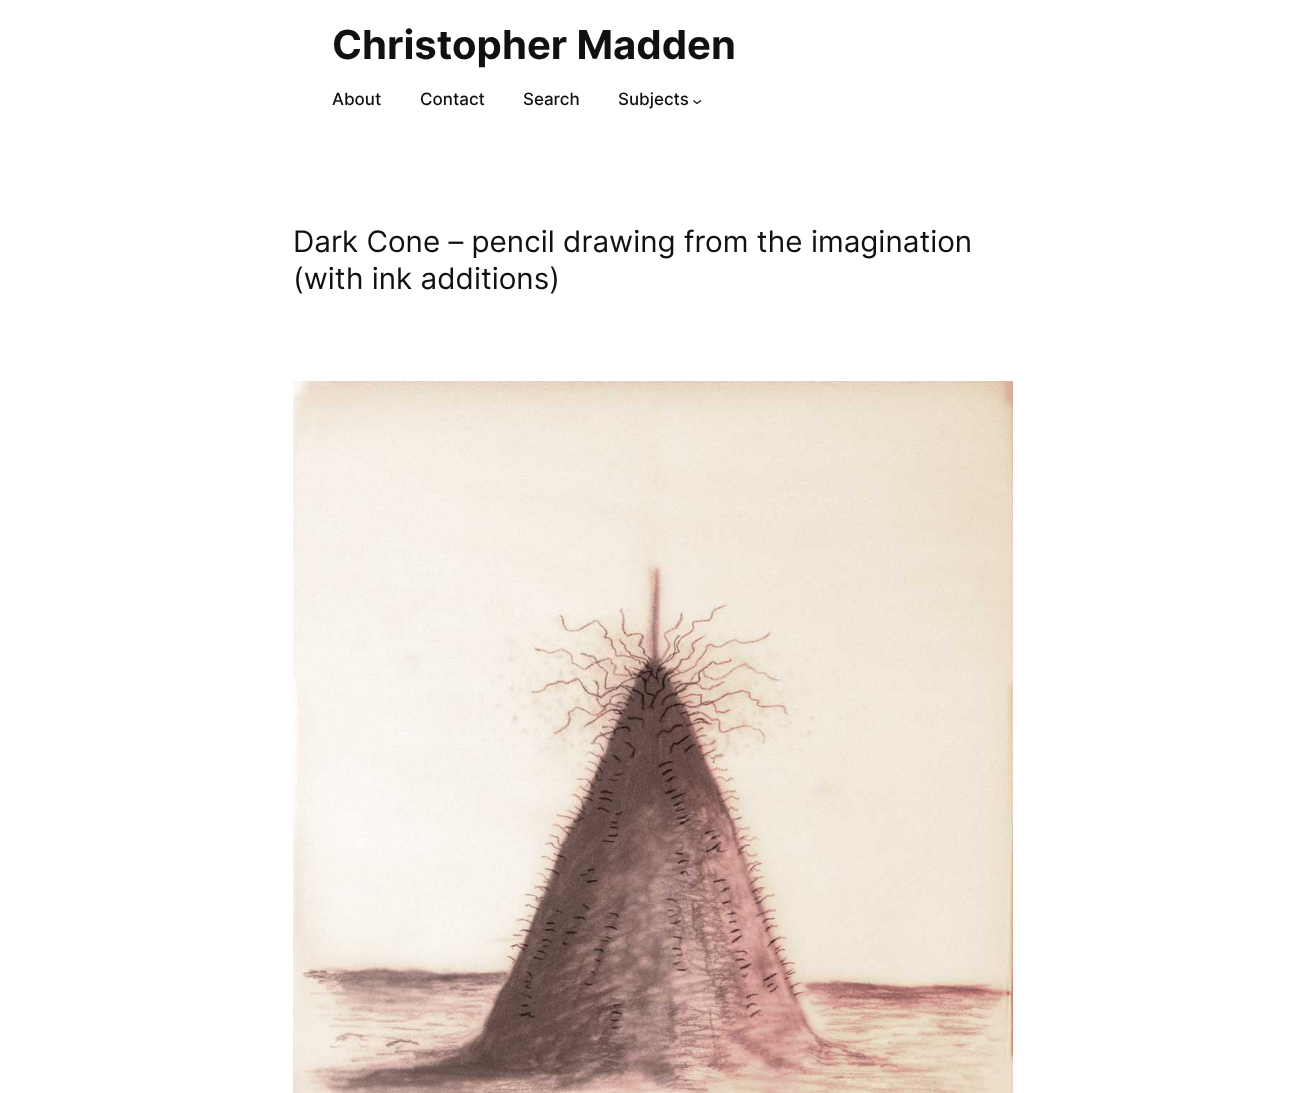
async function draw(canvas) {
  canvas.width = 1306
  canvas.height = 1093
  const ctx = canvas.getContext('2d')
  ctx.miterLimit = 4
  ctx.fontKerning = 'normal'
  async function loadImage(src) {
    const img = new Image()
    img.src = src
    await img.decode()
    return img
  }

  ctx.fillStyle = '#fff'
  ctx.fillRect(0, 0, 1306, 1093)
  ctx.font = 'bold 40px Inter'
  ctx.fillStyle = '#111'
  ctx.fillText('Christopher Madden', 332, 59)
  ctx.font = '500 17px Inter'
  ctx.fillText('About', 332, 105)
  ctx.fillText('Contact', 420, 105)
  ctx.fillText('Search', 523, 105)
  ctx.fillText('Subjects', 618, 105)
  ctx.beginPath()
  ctx.moveTo(693.5, 100.5)
  ctx.lineTo(697, 103.5)
  ctx.lineTo(701, 100.5)
  ctx.strokeStyle = '#111'
  ctx.lineWidth = 1.3
  ctx.stroke()
  ctx.font = '29.6px Inter'
  ctx.fillText('Dark Cone – pencil drawing from the imagination', 293, 252)
  ctx.fillText('(with ink additions)', 293, 289)
  ctx.drawImage(await loadImage('image0.png'), 293, 381, 720, 712)
}

draw(document.querySelector('canvas'))
